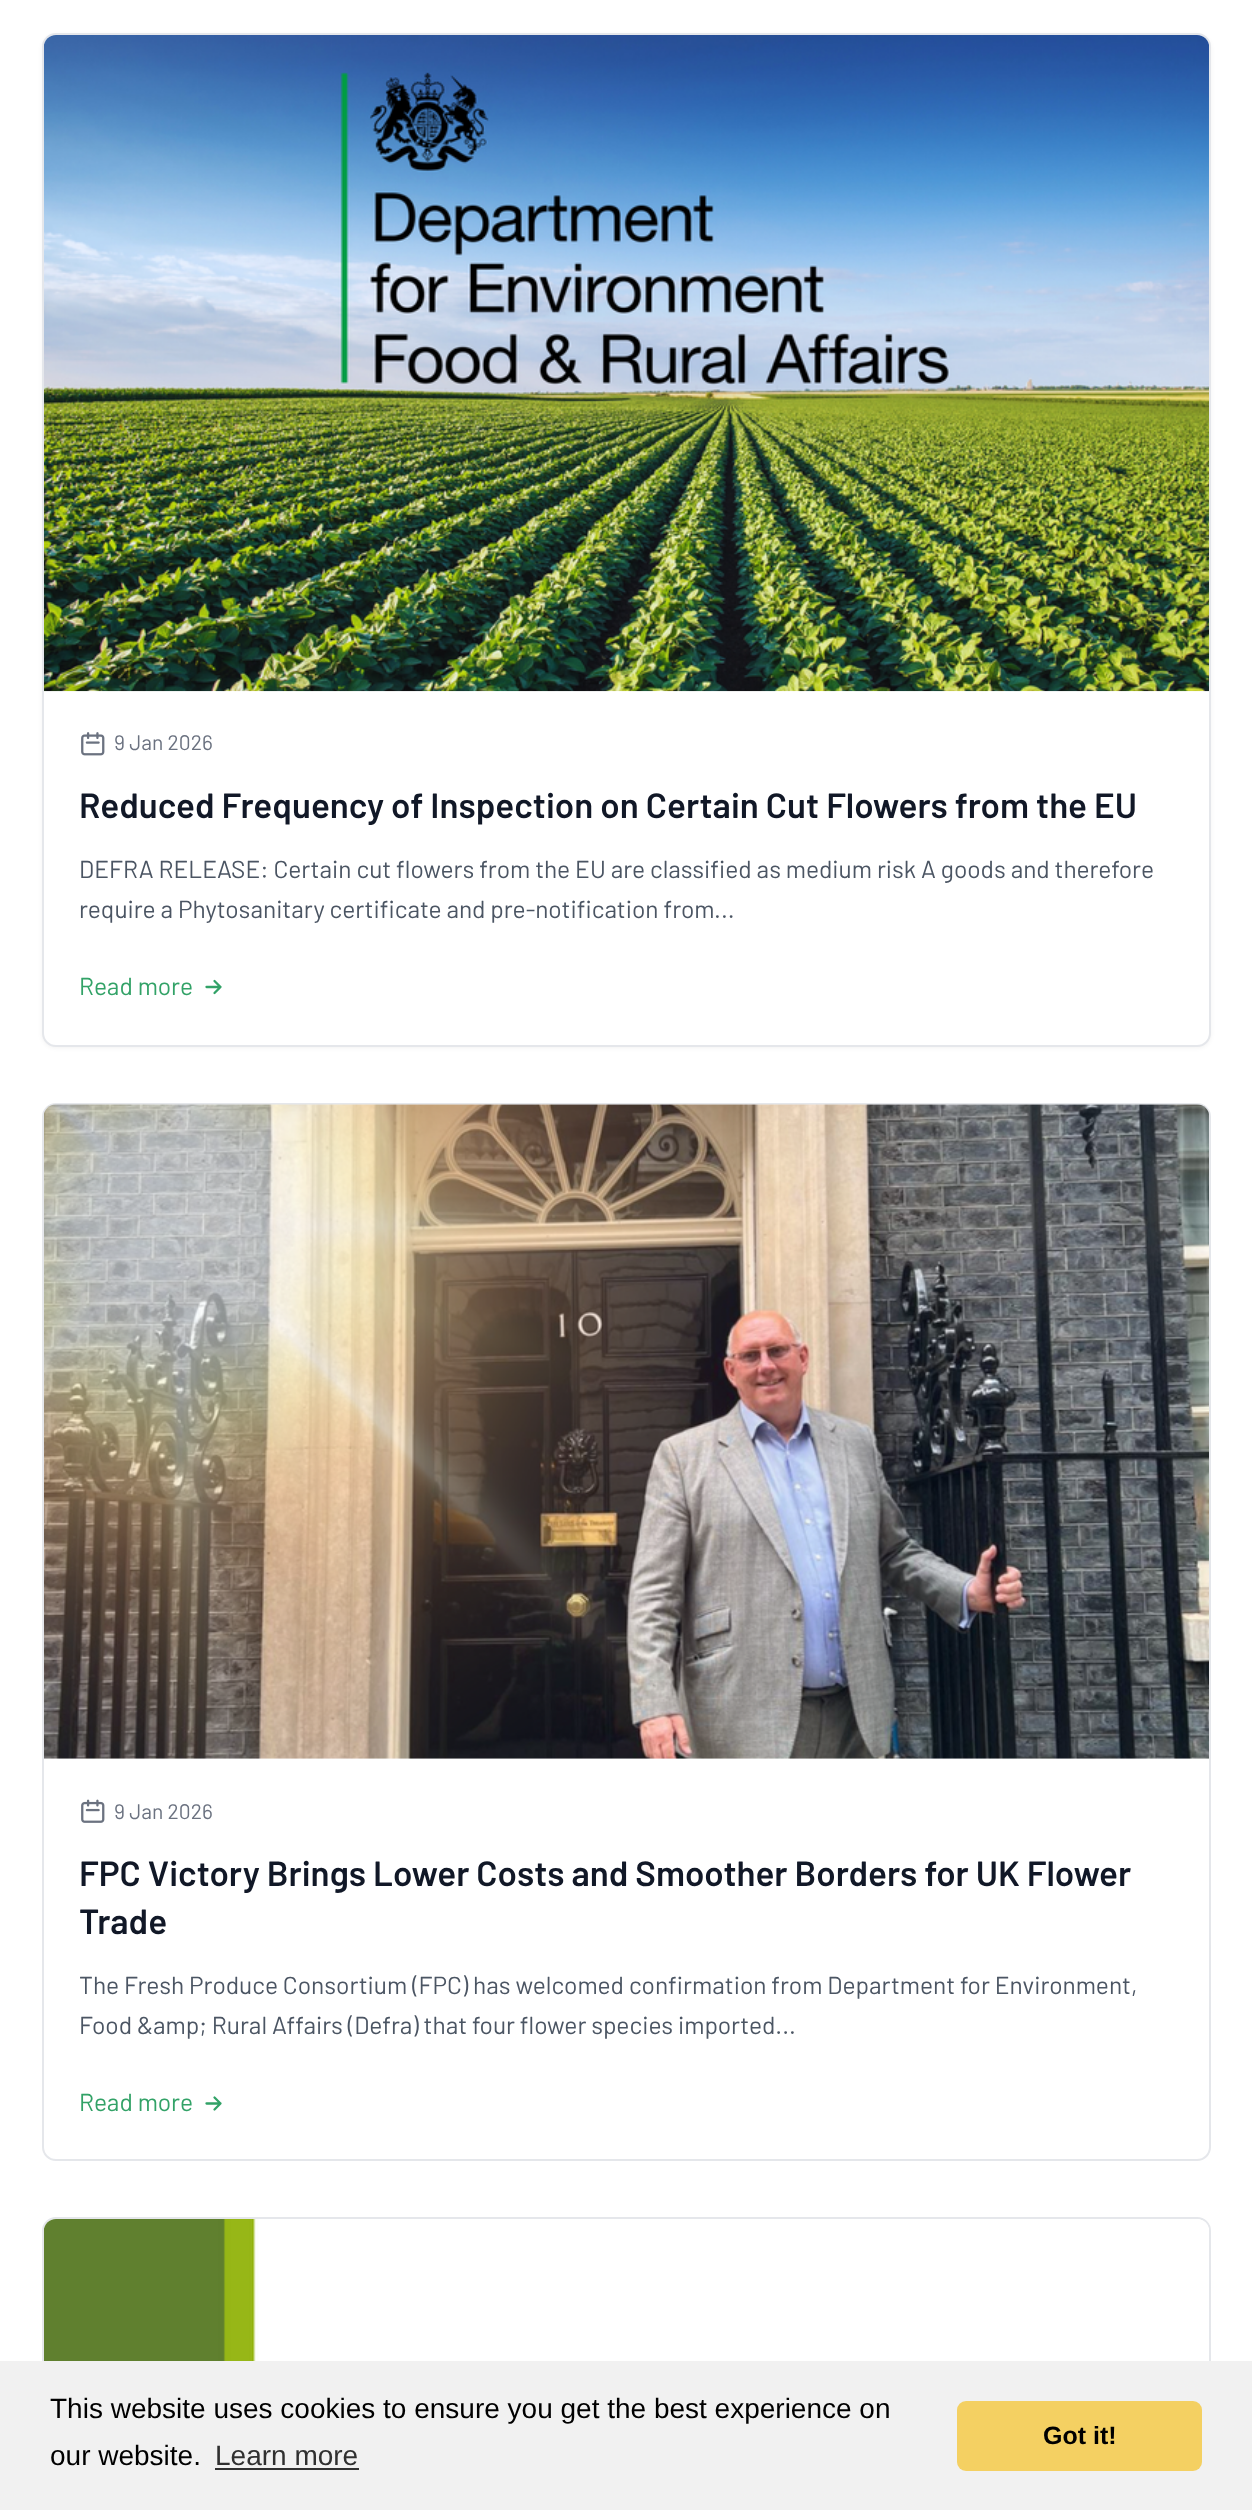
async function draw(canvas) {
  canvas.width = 1252
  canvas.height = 2510
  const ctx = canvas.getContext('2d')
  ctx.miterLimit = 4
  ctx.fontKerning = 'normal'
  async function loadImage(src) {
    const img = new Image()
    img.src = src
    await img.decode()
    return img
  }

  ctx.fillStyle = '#fff'
  ctx.fillRect(0, 0, 1252, 2510)
  ctx.fillStyle = '#0000000d'
  ctx.filter = 'blur(2px)'
  ctx.beginPath()
  ctx.roundRect(42, 35, 1169, 1013, 14)
  ctx.fill()
  ctx.filter = 'none'
  ctx.fillStyle = '#fff'
  ctx.beginPath()
  ctx.roundRect(43, 34, 1167, 1012, 13)
  ctx.fill()
  ctx.strokeStyle = '#e5e7eb'
  ctx.lineWidth = 2
  ctx.stroke()
  ctx.drawImage(await loadImage('image0.png'), 44, 35, 1165, 657)
  ctx.drawImage(await loadImage('image1.png'), 81, 732, 24, 24)
  ctx.font = '21px Barlow'
  ctx.fillStyle = '#6b7280'
  ctx.fillText('9 Jan 2026', 114, 750)
  ctx.font = '600 35px Barlow'
  ctx.fillStyle = '#111827'
  ctx.fillText('Reduced Frequency of Inspection on Certain Cut Flowers from the EU', 79, 818)
  ctx.font = '24.5px Barlow'
  ctx.fillStyle = '#4b5563'
  ctx.fillText('DEFRA RELEASE: Certain cut flowers from the EU are classified as medium risk A goods and therefore', 79, 878)
  ctx.fillText('require a Phytosanitary certificate and pre-notification from...', 79, 918)
  ctx.fillStyle = '#32a267'
  ctx.fillText('Read more', 79, 995)
  ctx.beginPath()
  ctx.moveTo(214.5, 981)
  ctx.lineTo(220.5, 987)
  ctx.moveTo(220.5, 987)
  ctx.lineTo(214.5, 993)
  ctx.moveTo(220.5, 987)
  ctx.lineTo(206.5, 987)
  ctx.strokeStyle = '#32a267'
  ctx.lineWidth = 2.3
  ctx.lineCap = 'round'
  ctx.lineJoin = 'round'
  ctx.stroke()
  ctx.beginPath()
  ctx.roundRect(43, 1104, 1167, 1056, 13)
  ctx.strokeStyle = '#e5e7eb'
  ctx.lineWidth = 2
  ctx.lineJoin = 'miter'
  ctx.stroke()
  ctx.drawImage(await loadImage('image2.png'), 44, 1104, 1165, 655)
  ctx.drawImage(await loadImage('image3.png'), 81, 1799, 24, 24)
  ctx.font = '21px Barlow'
  ctx.fillStyle = '#6b7280'
  ctx.fillText('9 Jan 2026', 114, 1819)
  ctx.font = '600 35px Barlow'
  ctx.fillStyle = '#111827'
  ctx.fillText('FPC Victory Brings Lower Costs and Smoother Borders for UK Flower', 79, 1886)
  ctx.fillText('Trade', 79, 1934)
  ctx.font = '24.5px Barlow'
  ctx.fillStyle = '#4b5563'
  ctx.fillText('The Fresh Produce Consortium (FPC) has welcomed confirmation from Department for Environment,', 79, 1994)
  ctx.fillText('Food &amp; Rural Affairs (Defra) that four flower species imported...', 79, 2034)
  ctx.fillStyle = '#32a267'
  ctx.fillText('Read more', 79, 2111)
  ctx.beginPath()
  ctx.moveTo(214.5, 2097.5)
  ctx.lineTo(220.5, 2103.5)
  ctx.moveTo(220.5, 2103.5)
  ctx.lineTo(214.5, 2109.5)
  ctx.moveTo(220.5, 2103.5)
  ctx.lineTo(206.5, 2103.5)
  ctx.strokeStyle = '#32a267'
  ctx.lineWidth = 2.3
  ctx.lineJoin = 'round'
  ctx.stroke()
  ctx.beginPath()
  ctx.roundRect(43, 2218, 1167, 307, 13)
  ctx.strokeStyle = '#e5e7eb'
  ctx.lineWidth = 2
  ctx.lineJoin = 'miter'
  ctx.stroke()
  ctx.drawImage(await loadImage('image4.png'), 44, 2219, 1165, 142)
  ctx.fillStyle = '#f1f1f1'
  ctx.fillRect(0, 2361, 1252, 149)
  ctx.font = '28px Liberation Sans'
  ctx.fillStyle = '#000'
  ctx.fillText('This website uses cookies to ensure you get the best experience on', 50, 2418)
  ctx.fillText('our website.', 50, 2465)
  ctx.fillStyle = '#303030'
  ctx.fillText('Learn more', 215, 2465)
  ctx.fillRect(215, 2468, 144, 2)
  ctx.fillStyle = '#f4d062'
  ctx.beginPath()
  ctx.roundRect(957, 2401, 245, 70, 9)
  ctx.fill()
  ctx.font = 'bold 25px Liberation Sans'
  ctx.fillStyle = '#000'
  ctx.fillText('Got it!', 1043, 2444)
}

draw(document.querySelector('canvas'))
